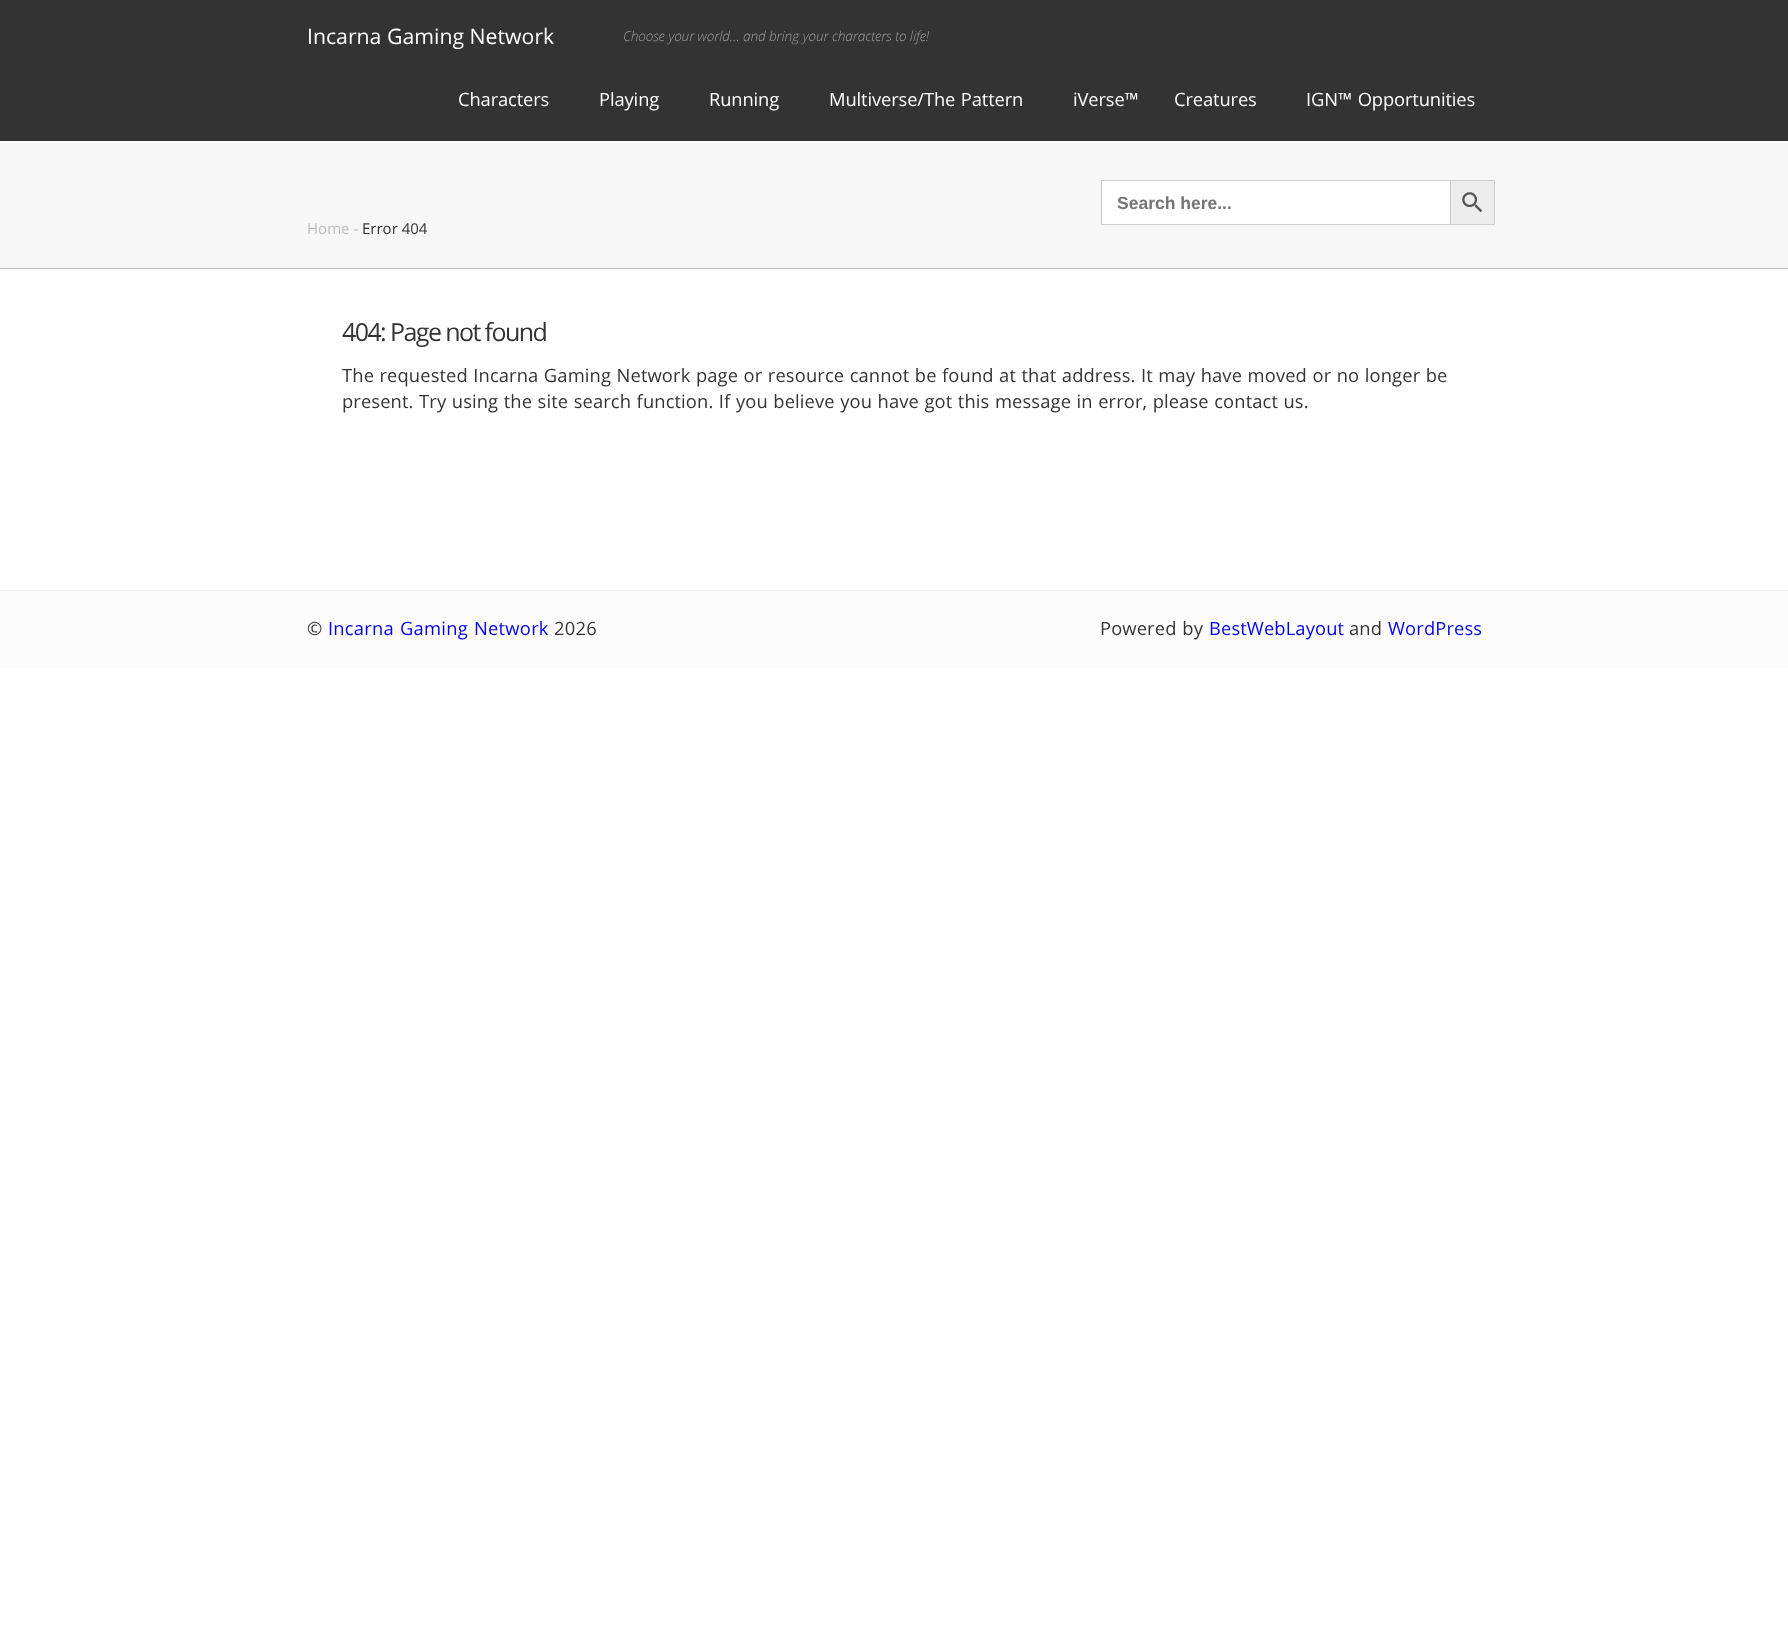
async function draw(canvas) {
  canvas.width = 1788
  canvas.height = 1625
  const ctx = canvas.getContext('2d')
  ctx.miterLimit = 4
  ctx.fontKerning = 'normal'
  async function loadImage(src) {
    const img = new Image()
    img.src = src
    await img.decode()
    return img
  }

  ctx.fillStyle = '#fff'
  ctx.fillRect(0, 0, 1788, 1625)
  ctx.fillStyle = '#333'
  ctx.fillRect(0, 0, 1788, 141)
  ctx.font = '21.25px Open Sans'
  ctx.fillStyle = '#fff'
  ctx.fillText('Incarna Gaming Network', 307, 44)
  ctx.letterSpacing = '-0.12px'
  ctx.font = 'italic 300 13.75px Open Sans'
  ctx.fillStyle = '#9d9d9d'
  ctx.fillText('Choose your world… and bring your characters to life!', 623, 41)
  ctx.font = '18.33px Open Sans'
  ctx.fillStyle = '#fff'
  ctx.fillText('Characters', 458, 106)
  ctx.fillText('Playing', 599, 106)
  ctx.fillText('Running', 709, 106)
  ctx.wordSpacing = '1px'
  ctx.fillText('Multiverse/The Pattern', 829, 106)
  ctx.wordSpacing = '0px'
  ctx.fillText('iVerse™', 1073, 106)
  ctx.fillText('Creatures', 1174, 106)
  ctx.wordSpacing = '1px'
  ctx.fillText('IGN™ Opportunities', 1306, 106)
  ctx.fillStyle = '#f7f7f7'
  ctx.fillRect(0, 143, 1788, 125)
  ctx.fillStyle = '#c0c0c0'
  ctx.fillRect(0, 268, 1788, 1)
  ctx.fillStyle = '#fff'
  ctx.fillRect(1102, 181, 348, 43)
  ctx.fillStyle = '#ccc'
  ctx.fillRect(1101, 180, 349, 1)
  ctx.fillRect(1101, 224, 349, 1)
  ctx.fillRect(1101, 180, 1, 45)
  ctx.letterSpacing = '0px'
  ctx.wordSpacing = '0px'
  ctx.font = 'bold 17.5px Liberation Sans'
  ctx.fillStyle = '#757575'
  ctx.fillText('Search here...', 1117, 209)
  ctx.fillStyle = '#ededed'
  ctx.beginPath()
  ctx.rect(1450.5, 180.5, 44, 44)
  ctx.fill()
  ctx.strokeStyle = '#ccc'
  ctx.stroke()
  ctx.drawImage(await loadImage('image0.png'), 1462, 192, 21, 21)
  ctx.font = '15px Open Sans'
  ctx.fillStyle = '#bcbcbc'
  ctx.fillText('Home -', 307, 234)
  ctx.fillStyle = '#333'
  ctx.fillText('Error 404', 362, 234)
  ctx.letterSpacing = '-1.6px'
  ctx.font = '25px Open Sans'
  ctx.fillText('404: Page not found', 342, 341)
  ctx.letterSpacing = '0.12px'
  ctx.wordSpacing = '0.6px'
  ctx.font = '18.33px Open Sans'
  ctx.fillText('The requested Incarna Gaming Network page or resource cannot be found at that address. It may have moved or no longer be', 342, 382)
  ctx.fillText('present. Try using the site search function. If you believe you have got this message in error, please contact us.', 342, 408)
  ctx.fillStyle = '#fcfcfc'
  ctx.fillRect(0, 591, 1788, 77)
  ctx.fillStyle = '#eee'
  ctx.fillRect(0, 590, 1788, 1)
  ctx.letterSpacing = '0.25px'
  ctx.wordSpacing = '0px'
  ctx.fillStyle = '#333'
  ctx.fillText('©', 307, 635)
  ctx.wordSpacing = '1px'
  ctx.fillStyle = '#00e'
  ctx.fillText('Incarna Gaming Network', 328, 635)
  ctx.wordSpacing = '0px'
  ctx.fillStyle = '#333'
  ctx.fillText('2026', 554, 635)
  ctx.letterSpacing = '0.12px'
  ctx.wordSpacing = '1px'
  ctx.fillText('Powered by', 1100, 635)
  ctx.wordSpacing = '0px'
  ctx.fillStyle = '#00e'
  ctx.fillText('BestWebLayout', 1209, 635)
  ctx.fillStyle = '#333'
  ctx.fillText('and', 1349, 635)
  ctx.fillStyle = '#00e'
  ctx.fillText('WordPress', 1388, 635)
}

draw(document.querySelector('canvas'))
